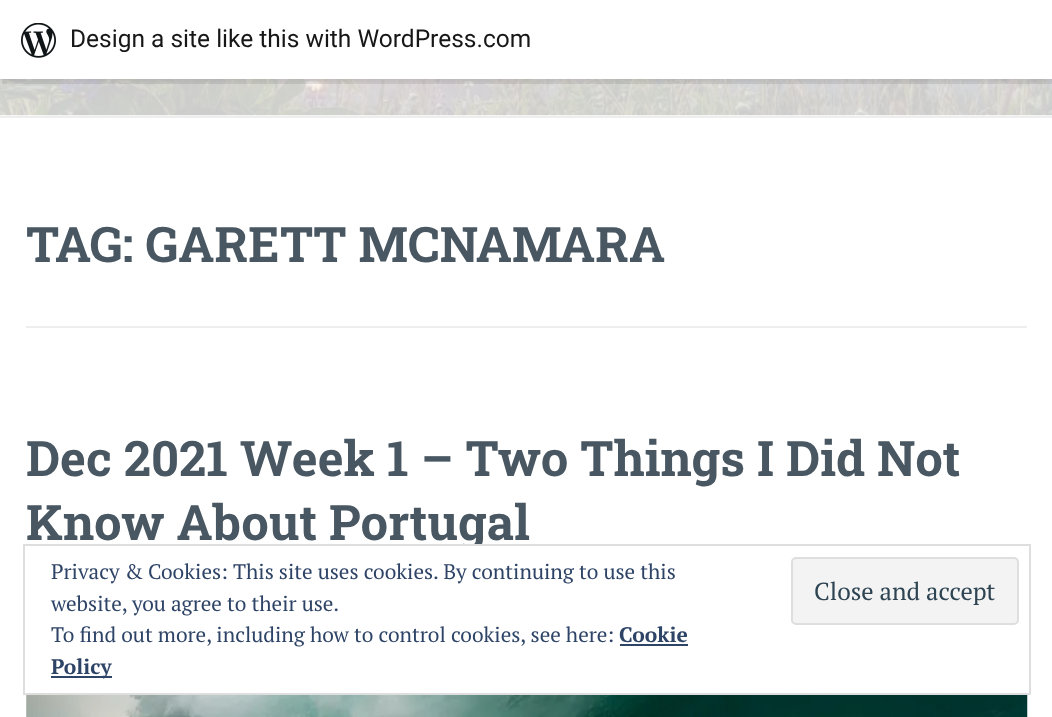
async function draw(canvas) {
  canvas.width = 1052
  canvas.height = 717
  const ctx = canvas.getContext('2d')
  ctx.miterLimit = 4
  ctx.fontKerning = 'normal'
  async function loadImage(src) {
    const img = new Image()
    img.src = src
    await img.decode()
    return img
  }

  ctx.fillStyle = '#fff'
  ctx.fillRect(0, 0, 1052, 717)
  ctx.drawImage(await loadImage('image1.png'), 0, 79, 1052, 37)
  ctx.fillStyle = '#0000000d'
  ctx.filter = 'blur(2px)'
  ctx.beginPath()
  ctx.rect(0, 2, 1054, 79)
  ctx.fill()
  ctx.filter = 'none'
  ctx.fillStyle = '#00000014'
  ctx.beginPath()
  ctx.moveTo(2, 79)
  ctx.lineTo(2, 84)
  ctx.lineTo(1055, 84)
  ctx.lineTo(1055, 5)
  ctx.lineTo(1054, 5)
  ctx.lineTo(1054, 79)
  ctx.closePath()
  ctx.fill()
  ctx.fillStyle = '#fff'
  ctx.fillRect(0, 0, 1052, 79)
  ctx.drawImage(await loadImage('image0.png'), 21, 23, 35, 35)
  ctx.font = '24.5px Roboto'
  ctx.fillStyle = '#171717'
  ctx.fillText('Design a site like this with WordPress.com', 70, 47)
  ctx.fillStyle = '#eee'
  ctx.fillRect(0, 116, 1052, 2)
  ctx.fillRect(26, 326, 1001, 2)
  ctx.font = 'bold 49px Roboto Slab'
  ctx.fillStyle = '#495762'
  ctx.fillText('TAG: GARETT MCNAMARA', 26, 262)
  ctx.fillText('Dec 2021 Week 1 – Two Things I Did Not', 26, 476)
  ctx.fillText('Know About Portugal', 26, 540)
  ctx.drawImage(await loadImage('image2.png'), 26, 695, 1002, 22)
  ctx.fillStyle = '#fff'
  ctx.fillRect(462, 546, 20, 5)
  ctx.strokeStyle = '#dedede'
  ctx.lineWidth = 2
  ctx.strokeRect(24, 545, 1006, 149)
  ctx.font = '21px PT Serif'
  ctx.fillStyle = '#2e4467'
  ctx.fillText('Privacy & Cookies: This site uses cookies. By continuing to use this', 51, 579)
  ctx.fillText('website, you agree to their use.', 51, 611)
  ctx.fillStyle = '#f3f3f3'
  ctx.beginPath()
  ctx.roundRect(792, 558, 226, 66, 4)
  ctx.fill()
  ctx.stroke()
  ctx.font = '24.5px PT Serif'
  ctx.fillStyle = '#2e4453'
  ctx.fillText('Close and accept', 814, 600)
  ctx.font = '21px PT Serif'
  ctx.fillStyle = '#2e4467'
  ctx.fillText('To find out more, including how to control cookies, see here:', 51, 642)
  ctx.font = 'bold 21px PT Serif'
  ctx.fillText('Cookie', 619, 642)
  ctx.fillRect(620, 644, 68, 2)
  ctx.fillRect(51, 676, 61, 2)
  ctx.fillText('Policy', 51, 674)
}

draw(document.querySelector('canvas'))
